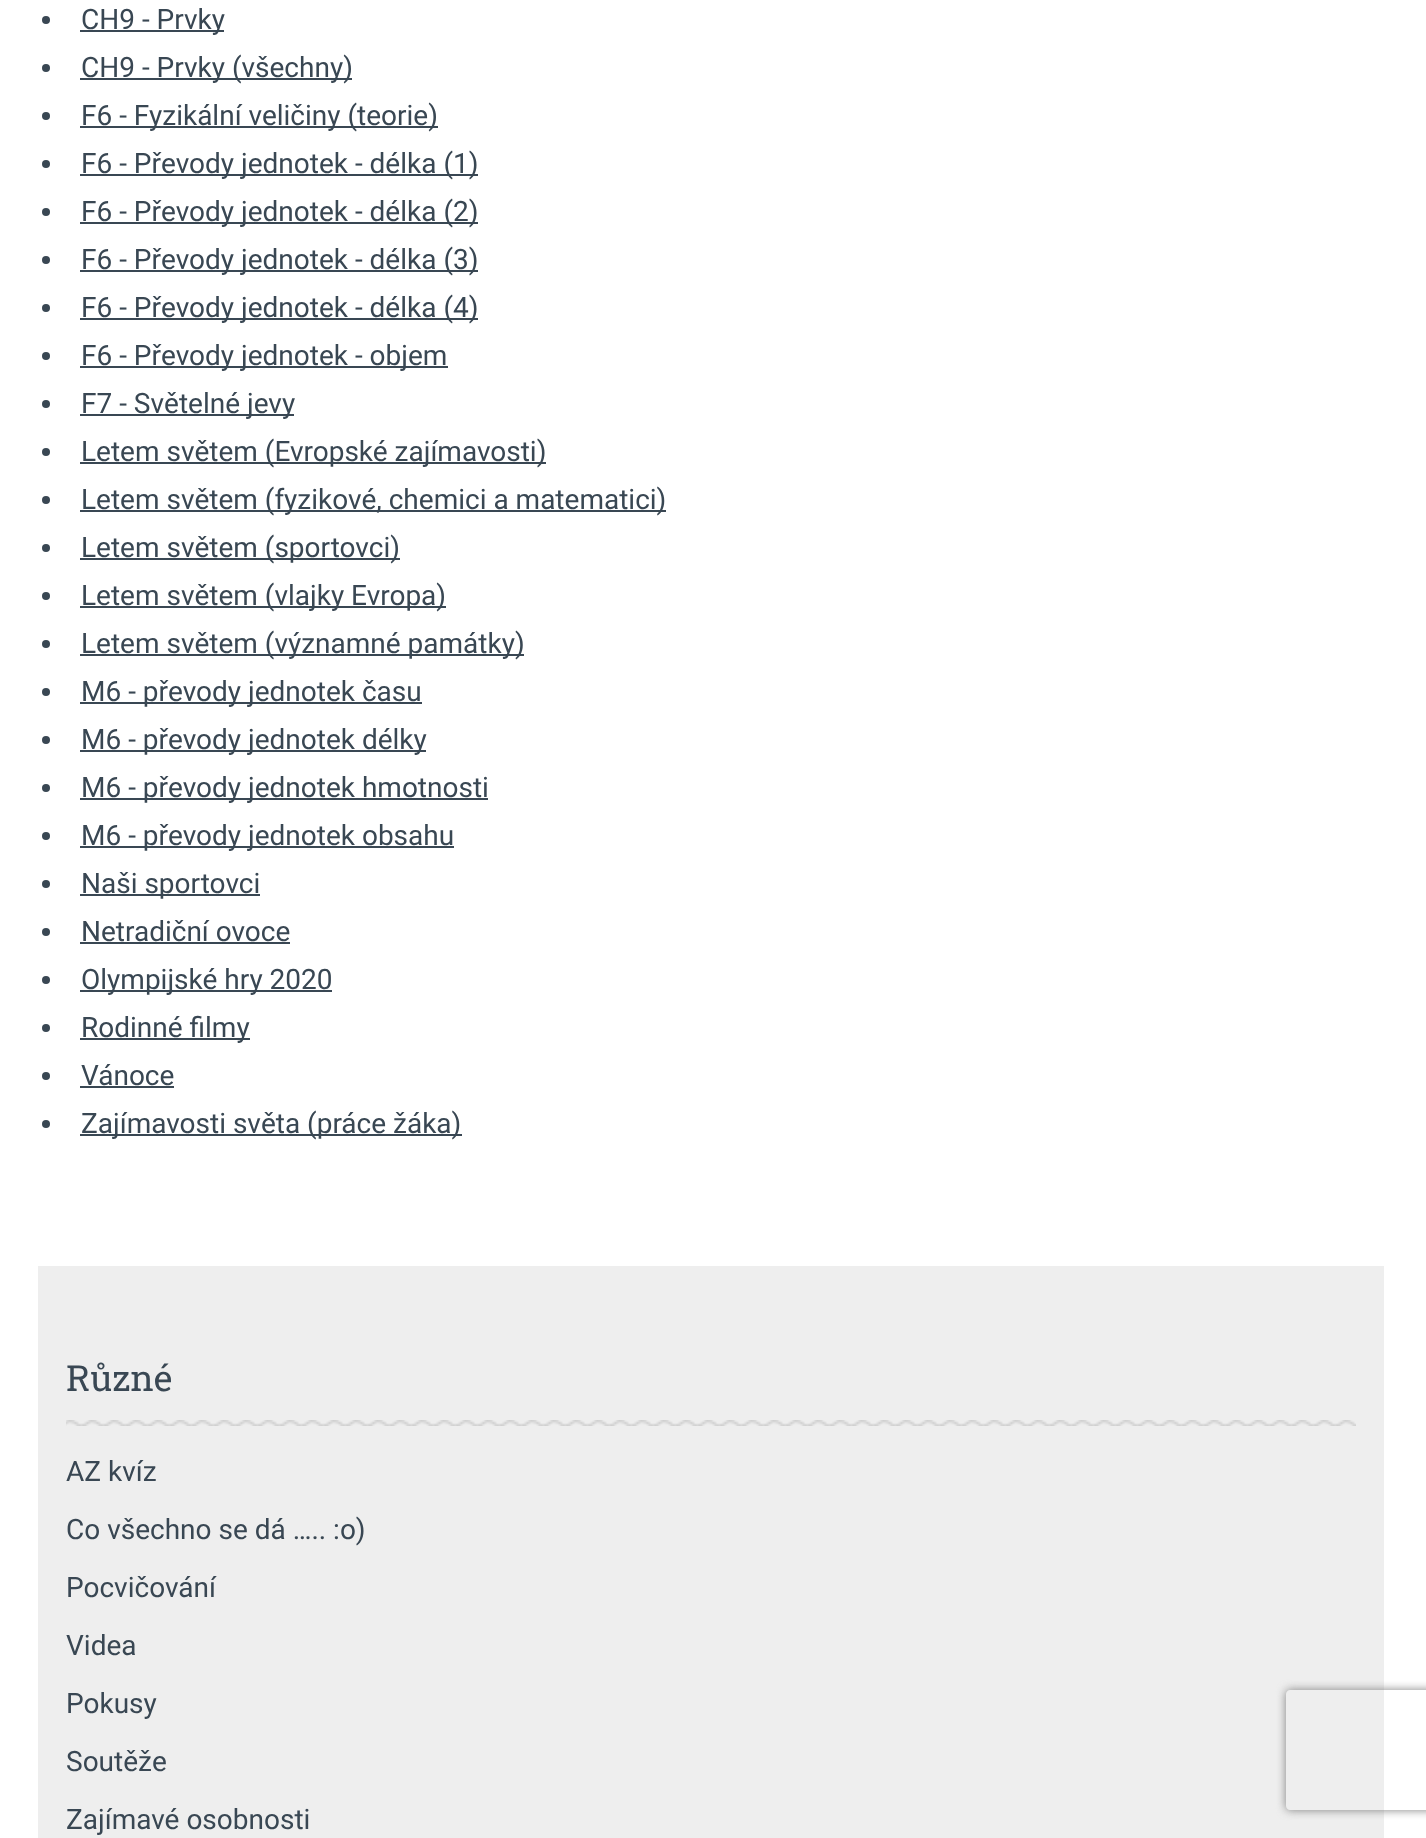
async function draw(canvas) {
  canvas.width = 1426
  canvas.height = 1838
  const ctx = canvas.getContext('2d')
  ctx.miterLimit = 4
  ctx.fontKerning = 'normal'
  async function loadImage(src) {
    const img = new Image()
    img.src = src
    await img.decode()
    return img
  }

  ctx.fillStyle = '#fff'
  ctx.fillRect(0, 0, 1426, 1838)
  ctx.fillStyle = '#394753'
  ctx.beginPath()
  ctx.arc(46, 20, 4, 0, 2 * Math.PI)
  ctx.fill()
  ctx.fillRect(80, 30, 144, 2)
  ctx.font = '28px Roboto'
  ctx.fillText('CH9 - Prvky', 81, 29)
  ctx.beginPath()
  ctx.arc(46, 68, 4, 0, 2 * Math.PI)
  ctx.fill()
  ctx.fillRect(80, 78, 272, 2)
  ctx.fillText('CH9 - Prvky (všechny)', 81, 77)
  ctx.beginPath()
  ctx.arc(46, 116, 4, 0, 2 * Math.PI)
  ctx.fill()
  ctx.fillRect(80, 126, 358, 2)
  ctx.fillText('F6 - Fyzikální veličiny (teorie)', 81, 125)
  ctx.beginPath()
  ctx.arc(46, 164, 4, 0, 2 * Math.PI)
  ctx.fill()
  ctx.fillRect(80, 174, 398, 2)
  ctx.fillText('F6 - Převody jednotek - délka (1)', 81, 173)
  ctx.beginPath()
  ctx.arc(46, 212, 4, 0, 2 * Math.PI)
  ctx.fill()
  ctx.fillRect(80, 222, 398, 2)
  ctx.fillText('F6 - Převody jednotek - délka (2)', 81, 221)
  ctx.beginPath()
  ctx.arc(46, 260, 4, 0, 2 * Math.PI)
  ctx.fill()
  ctx.fillRect(80, 270, 398, 2)
  ctx.fillText('F6 - Převody jednotek - délka (3)', 81, 269)
  ctx.beginPath()
  ctx.arc(46, 308, 4, 0, 2 * Math.PI)
  ctx.fill()
  ctx.fillRect(80, 318, 398, 2)
  ctx.fillText('F6 - Převody jednotek - délka (4)', 81, 317)
  ctx.beginPath()
  ctx.arc(46, 356, 4, 0, 2 * Math.PI)
  ctx.fill()
  ctx.fillRect(80, 366, 368, 2)
  ctx.fillText('F6 - Převody jednotek - objem', 81, 365)
  ctx.beginPath()
  ctx.arc(46, 404, 4, 0, 2 * Math.PI)
  ctx.fill()
  ctx.fillRect(80, 414, 214, 2)
  ctx.fillText('F7 - Světelné jevy', 81, 413)
  ctx.beginPath()
  ctx.arc(46, 452, 4, 0, 2 * Math.PI)
  ctx.fill()
  ctx.fillRect(80, 462, 466, 2)
  ctx.fillText('Letem světem (Evropské zajímavosti)', 81, 461)
  ctx.beginPath()
  ctx.arc(46, 500, 4, 0, 2 * Math.PI)
  ctx.fill()
  ctx.fillRect(80, 510, 586, 2)
  ctx.fillText('Letem světem (fyzikové, chemici a matematici)', 81, 509)
  ctx.beginPath()
  ctx.arc(46, 548, 4, 0, 2 * Math.PI)
  ctx.fill()
  ctx.fillRect(80, 558, 320, 2)
  ctx.fillText('Letem světem (sportovci)', 81, 557)
  ctx.beginPath()
  ctx.arc(46, 596, 4, 0, 2 * Math.PI)
  ctx.fill()
  ctx.fillRect(80, 606, 366, 2)
  ctx.fillText('Letem světem (vlajky Evropa)', 81, 605)
  ctx.beginPath()
  ctx.arc(46, 644, 4, 0, 2 * Math.PI)
  ctx.fill()
  ctx.fillRect(80, 654, 444, 2)
  ctx.fillText('Letem světem (významné památky)', 81, 653)
  ctx.beginPath()
  ctx.arc(46, 692, 4, 0, 2 * Math.PI)
  ctx.fill()
  ctx.fillRect(80, 702, 342, 2)
  ctx.fillText('M6 - převody jednotek času', 81, 701)
  ctx.beginPath()
  ctx.arc(46, 740, 4, 0, 2 * Math.PI)
  ctx.fill()
  ctx.fillRect(80, 750, 346, 2)
  ctx.fillText('M6 - převody jednotek délky', 81, 749)
  ctx.beginPath()
  ctx.arc(46, 788, 4, 0, 2 * Math.PI)
  ctx.fill()
  ctx.fillRect(80, 798, 408, 2)
  ctx.fillText('M6 - převody jednotek hmotnosti', 81, 797)
  ctx.beginPath()
  ctx.arc(46, 836, 4, 0, 2 * Math.PI)
  ctx.fill()
  ctx.fillRect(80, 846, 374, 2)
  ctx.fillText('M6 - převody jednotek obsahu', 81, 845)
  ctx.beginPath()
  ctx.arc(46, 884, 4, 0, 2 * Math.PI)
  ctx.fill()
  ctx.fillRect(80, 894, 180, 2)
  ctx.fillText('Naši sportovci', 81, 893)
  ctx.beginPath()
  ctx.arc(46, 932, 4, 0, 2 * Math.PI)
  ctx.fill()
  ctx.fillText('Netradiční ovoce', 81, 941)
  ctx.fillRect(80, 942, 210, 2)
  ctx.beginPath()
  ctx.arc(46, 980, 4, 0, 2 * Math.PI)
  ctx.fill()
  ctx.fillRect(80, 990, 252, 2)
  ctx.fillText('Olympijské hry 2020', 81, 989)
  ctx.beginPath()
  ctx.arc(46, 1028, 4, 0, 2 * Math.PI)
  ctx.fill()
  ctx.fillRect(80, 1038, 170, 2)
  ctx.fillText('Rodinné filmy', 81, 1037)
  ctx.beginPath()
  ctx.arc(46, 1076, 4, 0, 2 * Math.PI)
  ctx.fill()
  ctx.fillText('Vánoce', 81, 1085)
  ctx.fillRect(80, 1086, 94, 2)
  ctx.beginPath()
  ctx.arc(46, 1124, 4, 0, 2 * Math.PI)
  ctx.fill()
  ctx.fillRect(80, 1134, 382, 2)
  ctx.fillText('Zajímavosti světa (práce žáka)', 81, 1133)
  ctx.fillStyle = '#eee'
  ctx.fillRect(38, 1266, 1346, 572)
  ctx.drawImage(await loadImage('image0.png'), 66, 1420, 1290, 6)
  ctx.font = '36px Roboto Slab'
  ctx.fillStyle = '#394753'
  ctx.fillText('Různé', 66, 1391)
  ctx.font = '28px Roboto'
  ctx.fillText('AZ kvíz', 66, 1481)
  ctx.fillText('Co všechno se dá ….. :o)', 66, 1539)
  ctx.fillText('Pocvičování', 66, 1597)
  ctx.fillText('Videa', 66, 1655)
  ctx.fillText('Pokusy', 66, 1713)
  ctx.fillText('Soutěže', 66, 1771)
  ctx.fillText('Zajímavé osobnosti', 66, 1829)
  ctx.save()
  ctx.beginPath()
  ctx.moveTo(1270, 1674)
  ctx.lineTo(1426, 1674)
  ctx.lineTo(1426, 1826)
  ctx.lineTo(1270, 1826)
  ctx.closePath()
  ctx.moveTo(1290, 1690)
  ctx.lineTo(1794, 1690)
  ctx.bezierCurveTo(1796, 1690, 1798, 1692, 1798, 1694)
  ctx.lineTo(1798, 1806)
  ctx.bezierCurveTo(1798, 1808, 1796, 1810, 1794, 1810)
  ctx.lineTo(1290, 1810)
  ctx.bezierCurveTo(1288, 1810, 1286, 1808, 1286, 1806)
  ctx.lineTo(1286, 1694)
  ctx.bezierCurveTo(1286, 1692, 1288, 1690, 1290, 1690)
  ctx.closePath()
  ctx.clip('evenodd')
  ctx.fillStyle = '#808080'
  ctx.filter = 'blur(5px)'
  ctx.beginPath()
  ctx.roundRect(1286, 1690, 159, 120, 4)
  ctx.fill()
  ctx.filter = 'none'
  ctx.restore()
}

draw(document.querySelector('canvas'))
